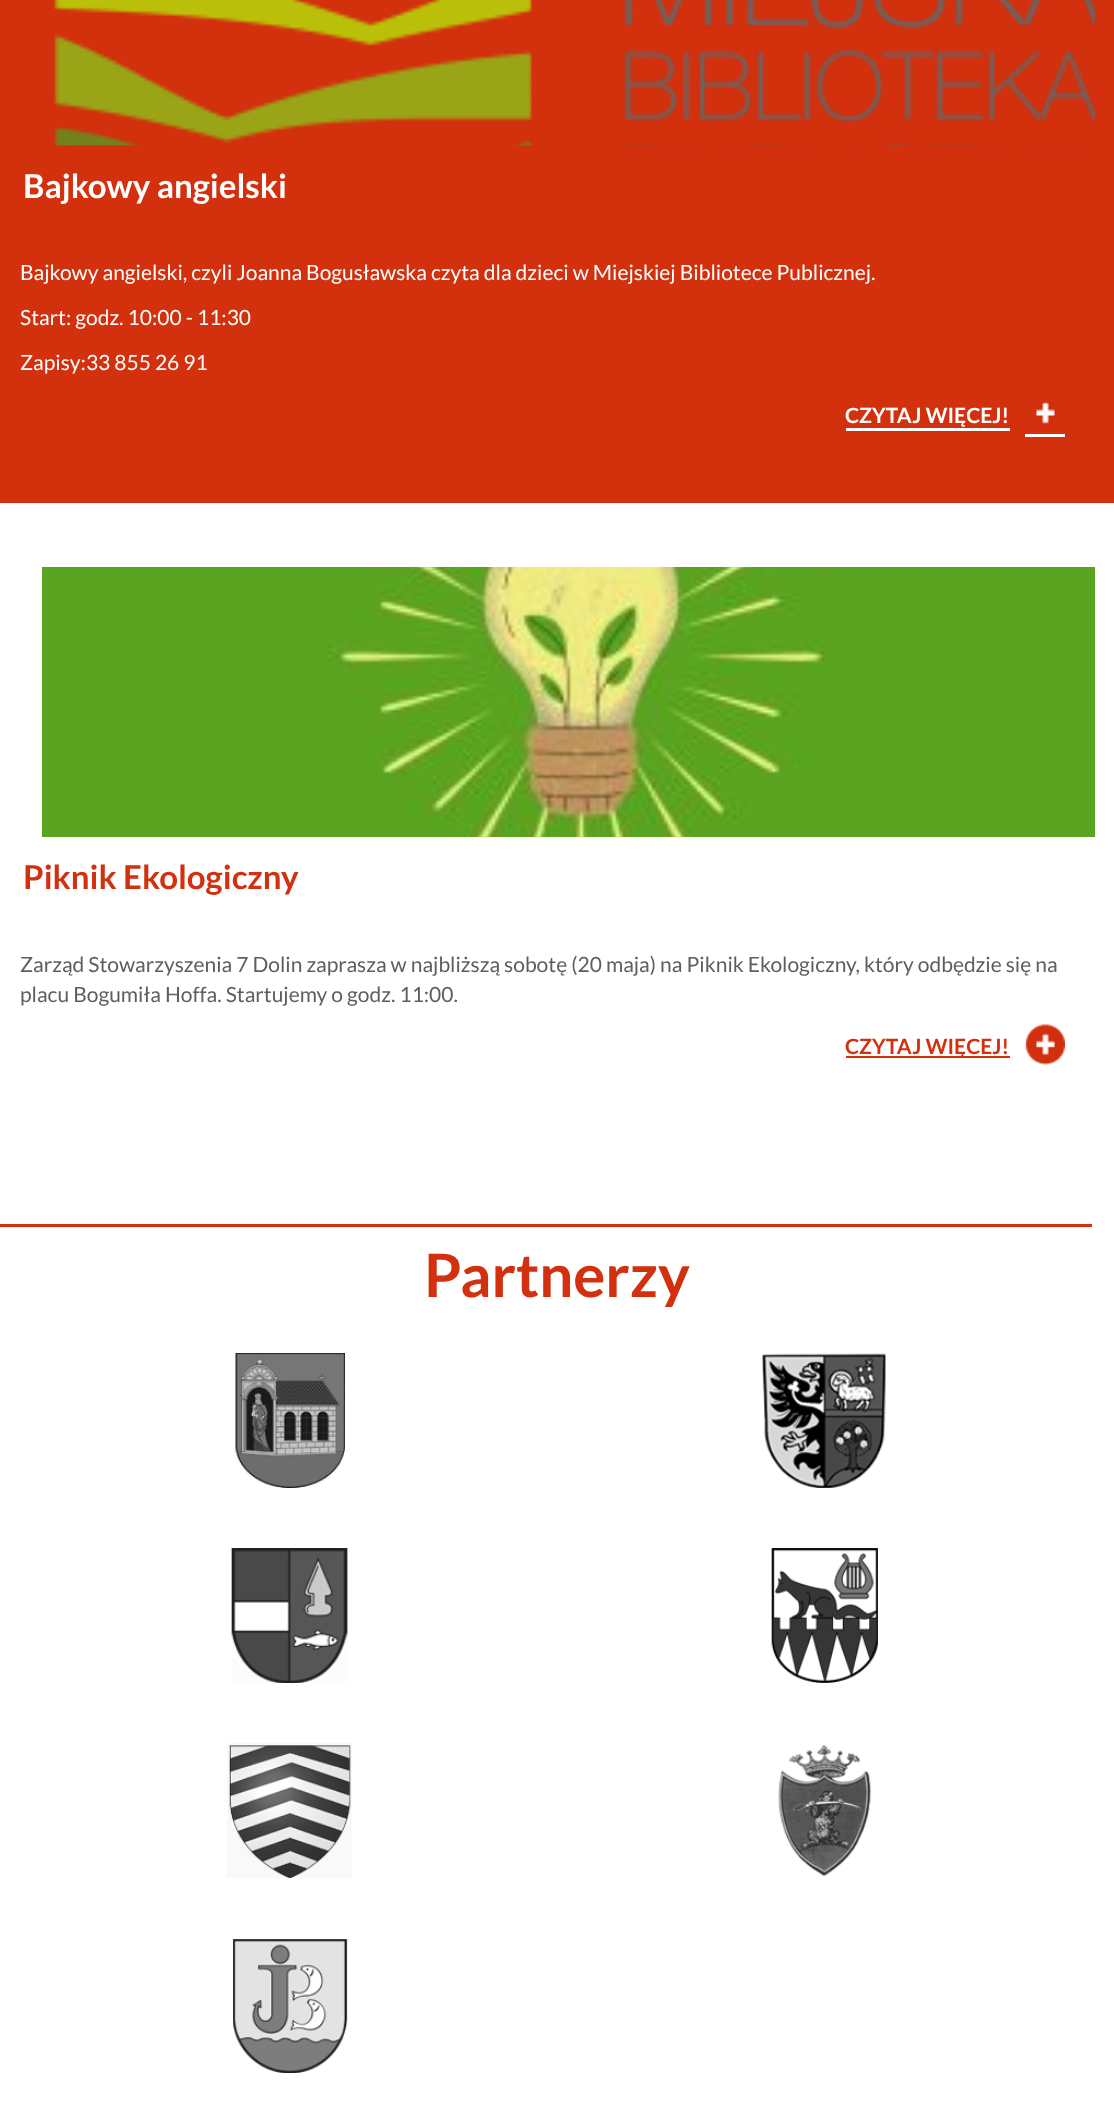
async function draw(canvas) {
  canvas.width = 1114
  canvas.height = 2127
  const ctx = canvas.getContext('2d')
  ctx.miterLimit = 4
  ctx.fontKerning = 'normal'
  async function loadImage(src) {
    const img = new Image()
    img.src = src
    await img.decode()
    return img
  }

  ctx.fillStyle = '#fff'
  ctx.fillRect(0, 0, 1114, 2127)
  ctx.fillStyle = '#d3300e'
  ctx.fillRect(0, 0, 1114, 503)
  ctx.drawImage(await loadImage('image0.png'), 54, 0, 1041, 146)
  ctx.font = 'bold 33px Lato'
  ctx.fillStyle = '#fff'
  ctx.fillText('Bajkowy angielski', 23, 198)
  ctx.font = '21px Lato'
  ctx.fillText('Bajkowy angielski, czyli Joanna Bogusławska czyta dla dzieci w Miejskiej Bibliotece Publicznej.', 20, 280)
  ctx.fillText('Start: godz. 10:00 - 11:30', 20, 325)
  ctx.fillText('Zapisy:33 855 26 91', 20, 370)
  ctx.fillRect(846, 428, 164, 3)
  ctx.fillRect(1025, 434, 40, 3)
  ctx.font = 'bold 21px Lato'
  ctx.fillText('CZYTAJ WIĘCEJ!', 845, 423)
  ctx.drawImage(await loadImage('image1.png'), 1036, 401, 19, 23)
  ctx.drawImage(await loadImage('image2.png'), 42, 567, 1053, 270)
  ctx.font = 'bold 33px Lato'
  ctx.fillStyle = '#d2300e'
  ctx.fillText('Piknik Ekologiczny', 23, 889)
  ctx.font = '21px Lato'
  ctx.fillStyle = '#5e5e5e'
  ctx.fillText('Zarząd Stowarzyszenia 7 Dolin zaprasza w najbliższą sobotę (20 maja) na Piknik Ekologiczny, który odbędzie się na', 20, 972)
  ctx.fillText('placu Bogumiła Hoffa. Startujemy o godz. 11:00.', 20, 1002)
  ctx.fillStyle = '#d2300e'
  ctx.fillRect(846, 1056, 164, 2)
  ctx.font = 'bold 21px Lato'
  ctx.fillText('CZYTAJ WIĘCEJ!', 845, 1054)
  ctx.drawImage(await loadImage('image3.png'), 1025, 1024, 40, 41)
  ctx.fillStyle = '#d3300e'
  ctx.fillRect(0, 1224, 1092, 3)
  ctx.font = 'bold 60px Lato'
  ctx.fillStyle = '#d2300e'
  ctx.fillText('Partnerzy', 424, 1297)
  ctx.drawImage(await loadImage('image4.png'), 235, 1353, 110, 135)
  ctx.drawImage(await loadImage('image5.png'), 762, 1353, 124, 135)
  ctx.drawImage(await loadImage('image6.png'), 231, 1548, 117, 135)
  ctx.drawImage(await loadImage('image7.png'), 771, 1548, 107, 135)
  ctx.drawImage(await loadImage('image8.png'), 227, 1743, 125, 135)
  ctx.drawImage(await loadImage('image9.png'), 778, 1745, 94, 131)
  ctx.drawImage(await loadImage('image10.png'), 233, 1939, 115, 134)
}

draw(document.querySelector('canvas'))
